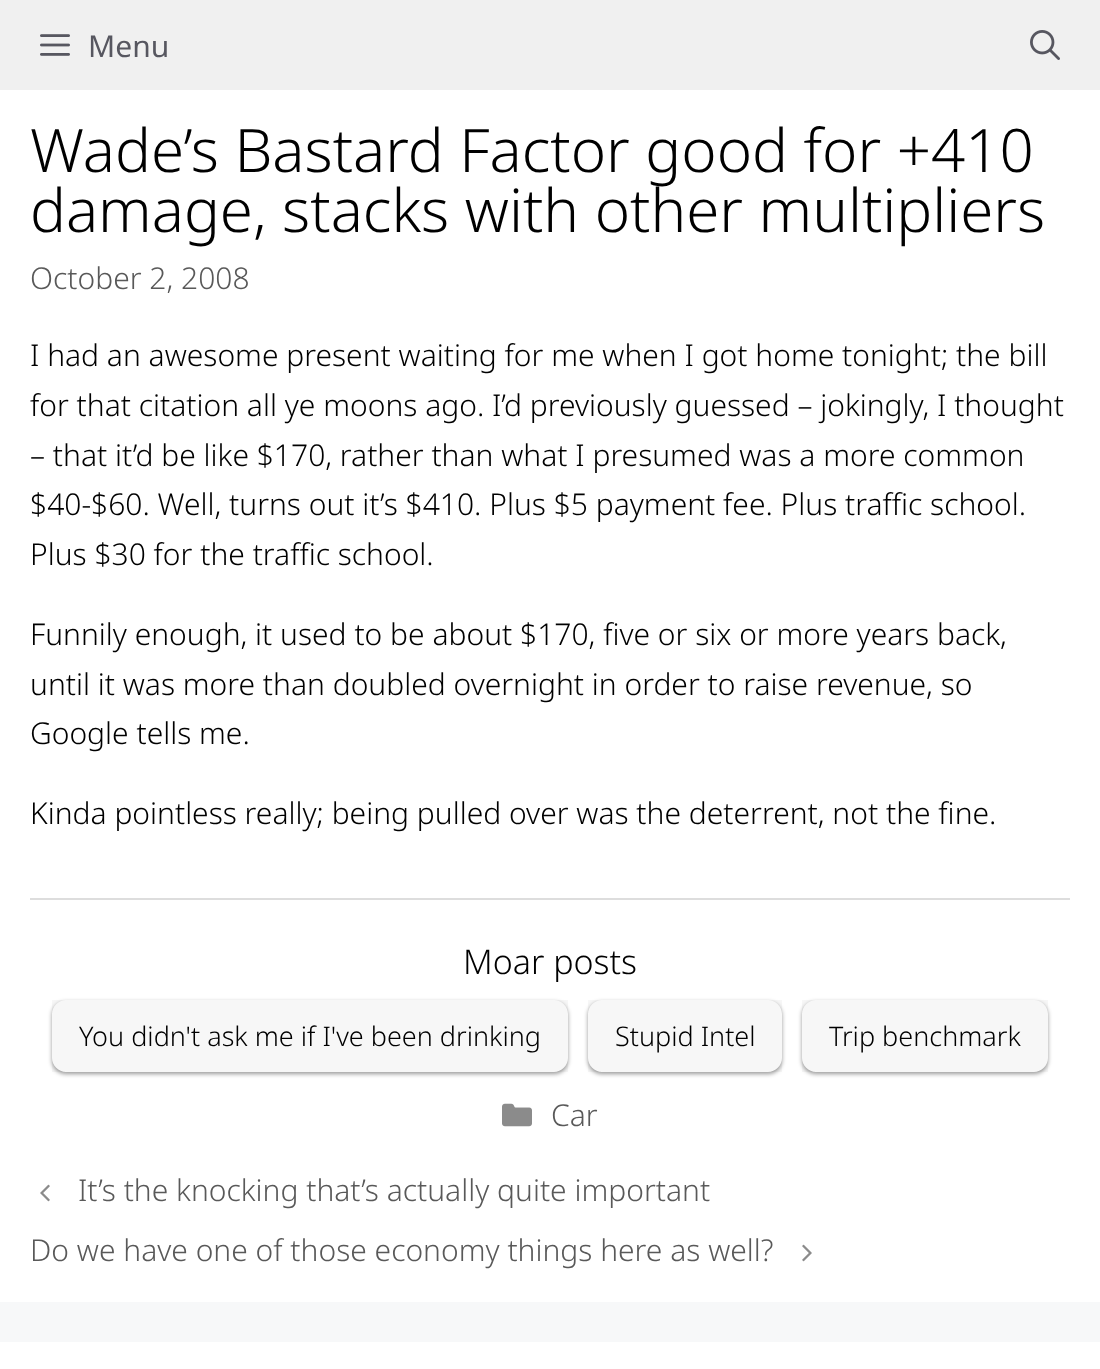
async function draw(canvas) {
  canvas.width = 1100
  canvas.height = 1369
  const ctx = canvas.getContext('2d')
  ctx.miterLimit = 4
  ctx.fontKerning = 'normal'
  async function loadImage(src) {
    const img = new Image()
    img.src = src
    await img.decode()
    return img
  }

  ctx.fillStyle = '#f7f8f9'
  ctx.fillRect(0, 0, 1100, 1369)
  ctx.fillStyle = '#f0f0f0'
  ctx.fillRect(0, 0, 1100, 90)
  ctx.drawImage(await loadImage('image0.png'), 40, 34, 30, 22)
  ctx.font = '30px Noto Sans'
  ctx.fillStyle = '#575760'
  ctx.fillText('Menu', 88, 57)
  ctx.drawImage(await loadImage('image1.png'), 1030, 30, 30, 30)
  ctx.fillStyle = '#fff'
  ctx.fillRect(0, 90, 1100, 1212)
  ctx.font = '300 60px Noto Sans'
  ctx.fillStyle = '#000'
  ctx.fillText('Wade’s Bastard Factor good for +410', 30, 172)
  ctx.fillText('damage, stacks with other multipliers', 30, 232)
  ctx.font = '300 30px Noto Sans'
  ctx.fillStyle = '#595959'
  ctx.fillText('October 2, 2008', 30, 289)
  ctx.fillStyle = '#000'
  ctx.fillText('I had an awesome present waiting for me when I got home tonight; the bill', 30, 366)
  ctx.fillText('for that citation all ye moons ago. I’d previously guessed – jokingly, I thought', 30, 416)
  ctx.fillText('– that it’d be like $170, rather than what I presumed was a more common', 30, 466)
  ctx.fillText('$40-$60. Well, turns out it’s $410. Plus $5 payment fee. Plus traffic school.', 30, 515)
  ctx.fillText('Plus $30 for the traffic school.', 30, 565)
  ctx.fillText('Funnily enough, it used to be about $170, five or six or more years back,', 30, 645)
  ctx.fillText('until it was more than doubled overnight in order to raise revenue, so', 30, 695)
  ctx.fillText('Google tells me.', 30, 744)
  ctx.fillText('Kinda pointless really; being pulled over was the deterrent, not the fine.', 30, 824)
  ctx.fillStyle = '#ddd'
  ctx.fillRect(30, 898, 1040, 2)
  ctx.font = '300 34px Noto Sans'
  ctx.fillStyle = '#000'
  ctx.fillText('Moar posts', 463, 974)
  ctx.save()
  ctx.beginPath()
  ctx.moveTo(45, 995)
  ctx.lineTo(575, 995)
  ctx.lineTo(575, 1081)
  ctx.lineTo(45, 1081)
  ctx.closePath()
  ctx.moveTo(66, 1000)
  ctx.lineTo(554, 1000)
  ctx.bezierCurveTo(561.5, 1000, 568, 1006.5, 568, 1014)
  ctx.lineTo(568, 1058)
  ctx.bezierCurveTo(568, 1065.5, 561.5, 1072, 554, 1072)
  ctx.lineTo(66, 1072)
  ctx.bezierCurveTo(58.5, 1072, 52, 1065.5, 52, 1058)
  ctx.lineTo(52, 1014)
  ctx.bezierCurveTo(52, 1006.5, 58.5, 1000, 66, 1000)
  ctx.closePath()
  ctx.clip('evenodd')
  ctx.fillStyle = '#00000066'
  ctx.filter = 'blur(2px)'
  ctx.beginPath()
  ctx.roundRect(52, 1002, 516, 72, 14)
  ctx.fill()
  ctx.filter = 'none'
  ctx.restore()
  ctx.fillStyle = '#00000008'
  ctx.fillRect(52, 1000, 516, 72)
  ctx.font = '300 27px Noto Sans'
  ctx.fillStyle = '#000'
  ctx.fillText('You didn\'t ask me if I\'ve been drinking', 79, 1046)
  ctx.save()
  ctx.beginPath()
  ctx.moveTo(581, 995)
  ctx.lineTo(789, 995)
  ctx.lineTo(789, 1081)
  ctx.lineTo(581, 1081)
  ctx.closePath()
  ctx.moveTo(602, 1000)
  ctx.lineTo(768, 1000)
  ctx.bezierCurveTo(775.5, 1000, 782, 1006.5, 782, 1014)
  ctx.lineTo(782, 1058)
  ctx.bezierCurveTo(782, 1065.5, 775.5, 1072, 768, 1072)
  ctx.lineTo(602, 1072)
  ctx.bezierCurveTo(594.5, 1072, 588, 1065.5, 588, 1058)
  ctx.lineTo(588, 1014)
  ctx.bezierCurveTo(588, 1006.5, 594.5, 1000, 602, 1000)
  ctx.closePath()
  ctx.clip('evenodd')
  ctx.fillStyle = '#00000066'
  ctx.filter = 'blur(2px)'
  ctx.beginPath()
  ctx.roundRect(588, 1002, 194, 72, 14)
  ctx.fill()
  ctx.filter = 'none'
  ctx.restore()
  ctx.fillStyle = '#00000008'
  ctx.fillRect(588, 1000, 194, 72)
  ctx.fillStyle = '#000'
  ctx.fillText('Stupid Intel', 615, 1046)
  ctx.save()
  ctx.beginPath()
  ctx.moveTo(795, 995)
  ctx.lineTo(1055, 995)
  ctx.lineTo(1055, 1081)
  ctx.lineTo(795, 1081)
  ctx.closePath()
  ctx.moveTo(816, 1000)
  ctx.lineTo(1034, 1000)
  ctx.bezierCurveTo(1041.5, 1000, 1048, 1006.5, 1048, 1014)
  ctx.lineTo(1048, 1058)
  ctx.bezierCurveTo(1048, 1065.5, 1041.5, 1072, 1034, 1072)
  ctx.lineTo(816, 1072)
  ctx.bezierCurveTo(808.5, 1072, 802, 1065.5, 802, 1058)
  ctx.lineTo(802, 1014)
  ctx.bezierCurveTo(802, 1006.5, 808.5, 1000, 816, 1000)
  ctx.closePath()
  ctx.clip('evenodd')
  ctx.fillStyle = '#00000066'
  ctx.filter = 'blur(2px)'
  ctx.beginPath()
  ctx.roundRect(802, 1002, 246, 72, 14)
  ctx.fill()
  ctx.filter = 'none'
  ctx.restore()
  ctx.fillStyle = '#00000008'
  ctx.fillRect(802, 1000, 246, 72)
  ctx.fillStyle = '#000'
  ctx.fillText('Trip benchmark', 829, 1046)
  ctx.drawImage(await loadImage('image2.png'), 502, 1103, 30, 24)
  ctx.font = '300 30px Noto Sans'
  ctx.fillStyle = '#595959'
  ctx.fillText('Car', 551, 1126)
  ctx.drawImage(await loadImage('image3.png'), 40, 1184, 10, 18)
  ctx.fillText('It’s the knocking that’s actually quite important', 78, 1201)
  ctx.fillText('Do we have one of those economy things here as well?', 30, 1261)
  ctx.drawImage(await loadImage('image4.png'), 802, 1244, 10, 18)
  ctx.fillStyle = '#fff'
  ctx.fillRect(0, 1342, 1100, 27)
}

draw(document.querySelector('canvas'))
